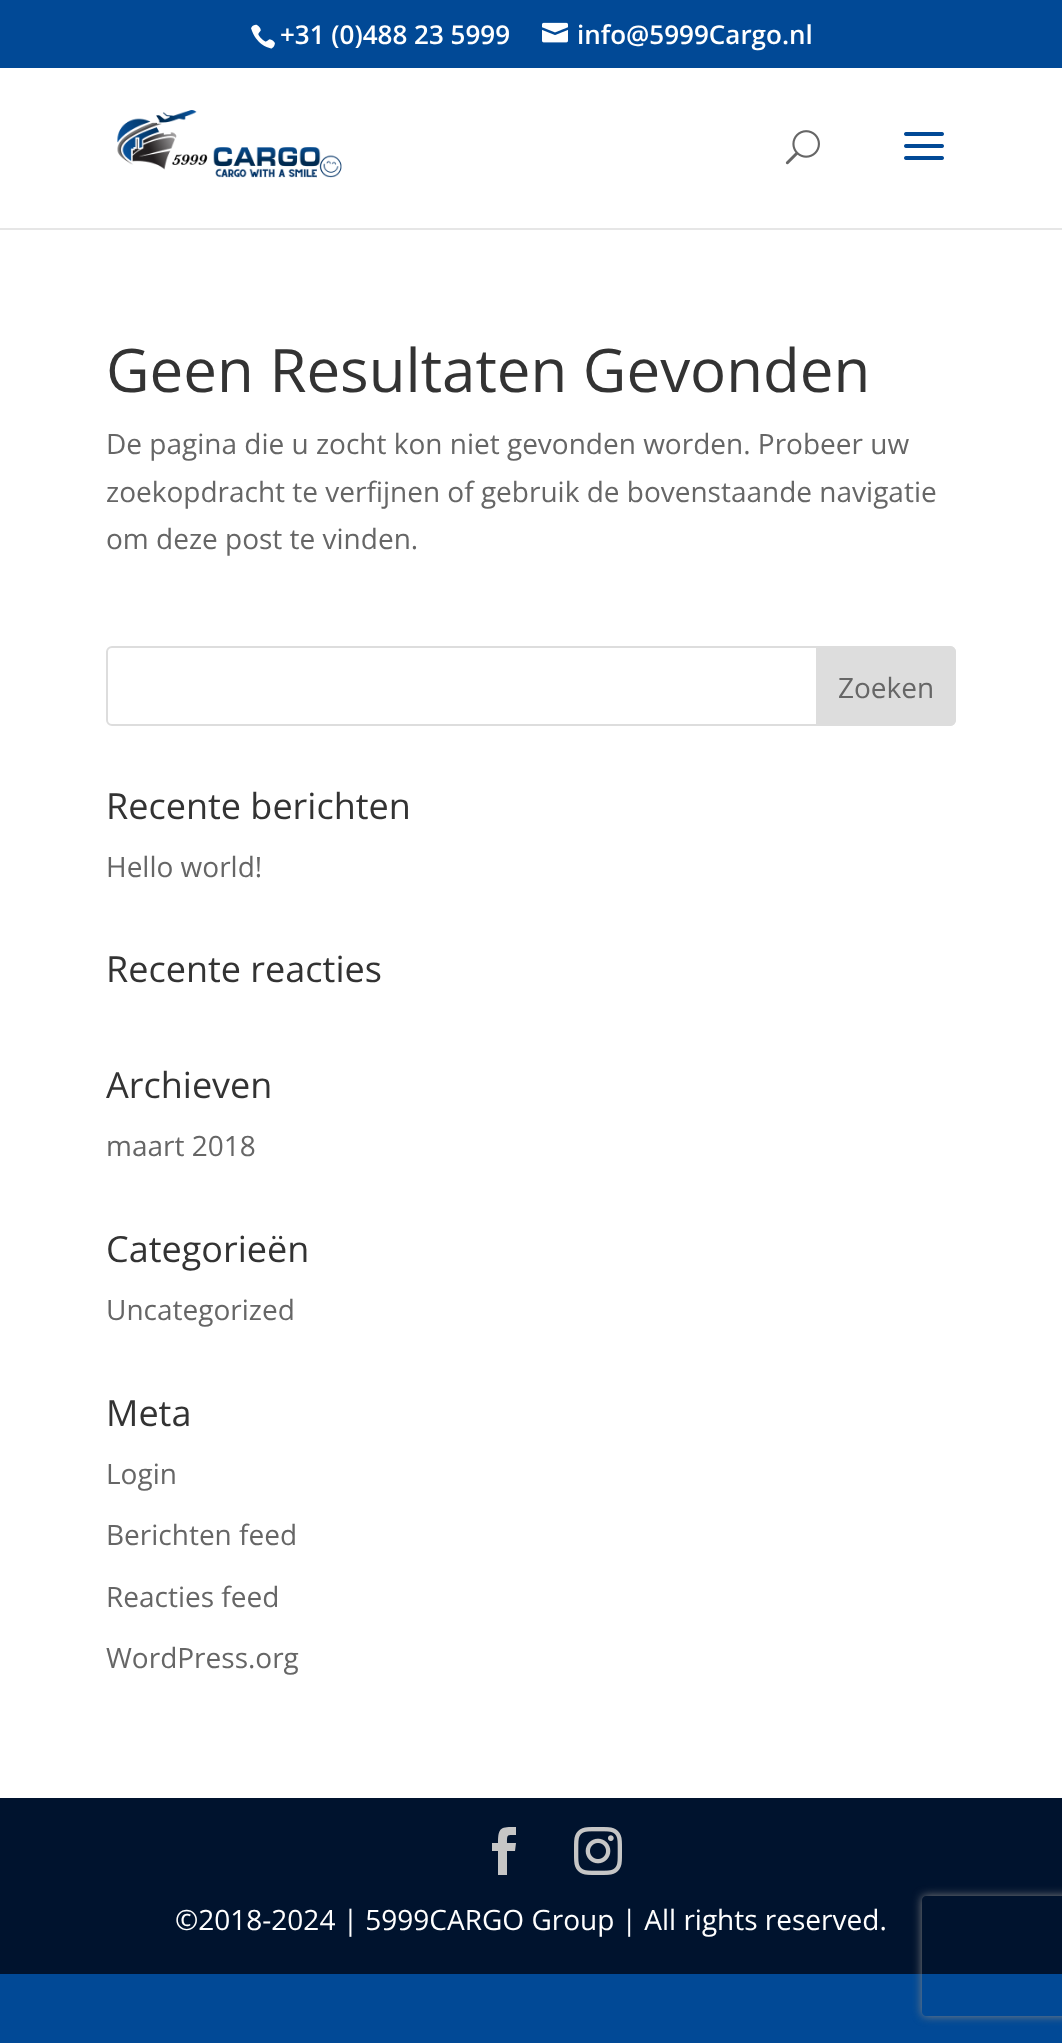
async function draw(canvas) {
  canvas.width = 1062
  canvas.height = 2043
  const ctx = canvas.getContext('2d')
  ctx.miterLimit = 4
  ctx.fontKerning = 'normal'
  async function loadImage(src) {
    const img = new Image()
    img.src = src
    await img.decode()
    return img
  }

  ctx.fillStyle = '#014996'
  ctx.fillRect(0, 0, 1062, 2043)
  ctx.drawImage(await loadImage('image0.png'), 251, 24, 24, 25)
  ctx.font = '600 26px Open Sans'
  ctx.fillStyle = '#fff'
  ctx.fillText('+31 (0)488 23 5999', 280, 44)
  ctx.drawImage(await loadImage('image1.png'), 542, 22, 26, 21)
  ctx.fillText('info@5999Cargo.nl', 577, 44)
  ctx.fillStyle = '#e6e6e6'
  ctx.fillRect(0, 228, 1062, 2)
  ctx.fillStyle = '#fff'
  ctx.fillRect(0, 68, 1062, 160)
  ctx.drawImage(await loadImage('image2.png'), 117, 110, 225, 68)
  ctx.drawImage(await loadImage('image3.png'), 785, 130, 35, 35)
  ctx.drawImage(await loadImage('image4.png'), 904, 132, 40, 28)
  ctx.fillRect(0, 230, 1062, 1568)
  ctx.font = '60px Open Sans'
  ctx.fillStyle = '#333'
  ctx.fillText('Geen Resultaten Gevonden', 106, 392)
  ctx.font = '28px Open Sans'
  ctx.fillStyle = '#666'
  ctx.fillText('De pagina die u zocht kon niet gevonden worden. Probeer uw', 106, 454)
  ctx.fillText('zoekopdracht te verfijnen of gebruik de bovenstaande navigatie', 106, 502)
  ctx.fillText('om deze post te vinden.', 106, 549)
  ctx.beginPath()
  ctx.roundRect(107, 647, 848, 78, 5)
  ctx.strokeStyle = '#ddd'
  ctx.lineWidth = 2
  ctx.stroke()
  ctx.fillStyle = '#ddd'
  ctx.beginPath()
  ctx.roundRect(817, 647, 138, 78, [0, 5, 5, 0])
  ctx.fill()
  ctx.stroke()
  ctx.fillStyle = '#666'
  ctx.fillText('Zoeken', 838, 698)
  ctx.font = '36px Open Sans'
  ctx.fillStyle = '#333'
  ctx.fillText('Recente berichten', 106, 819)
  ctx.font = '28px Open Sans'
  ctx.fillStyle = '#666'
  ctx.fillText('Hello world!', 106, 877)
  ctx.font = '36px Open Sans'
  ctx.fillStyle = '#333'
  ctx.fillText('Recente reacties', 106, 982)
  ctx.fillText('Archieven', 106, 1098)
  ctx.font = '28px Open Sans'
  ctx.fillStyle = '#666'
  ctx.fillText('maart 2018', 106, 1156)
  ctx.font = '36px Open Sans'
  ctx.fillStyle = '#333'
  ctx.fillText('Categorieën', 106, 1262)
  ctx.font = '28px Open Sans'
  ctx.fillStyle = '#666'
  ctx.fillText('Uncategorized', 106, 1320)
  ctx.font = '36px Open Sans'
  ctx.fillStyle = '#333'
  ctx.fillText('Meta', 106, 1426)
  ctx.font = '28px Open Sans'
  ctx.fillStyle = '#666'
  ctx.fillText('Login', 106, 1484)
  ctx.fillText('Berichten feed', 106, 1545)
  ctx.fillText('Reacties feed', 106, 1607)
  ctx.fillText('WordPress.org', 106, 1668)
  ctx.fillStyle = '#00132e'
  ctx.fillRect(0, 1798, 1062, 176)
  ctx.fillStyle = '#c6c6c6'
  ctx.beginPath()
  ctx.moveTo(498, 1875)
  ctx.lineTo(507, 1875)
  ctx.lineTo(507, 1851)
  ctx.lineTo(515, 1851)
  ctx.lineTo(516, 1843)
  ctx.lineTo(507, 1843)
  ctx.bezierCurveTo(507, 1834, 507, 1835, 516, 1835)
  ctx.lineTo(516, 1827)
  ctx.bezierCurveTo(501, 1827, 498, 1827, 498, 1843)
  ctx.lineTo(492, 1843)
  ctx.lineTo(492, 1851)
  ctx.lineTo(498, 1851)
  ctx.closePath()
  ctx.fill()
  ctx.drawImage(await loadImage('image5.png'), 574, 1827, 48, 48)
  ctx.fillStyle = '#fff'
  ctx.fillText('©2018-2024 | 5999CARGO Group | All rights reserved.', 175, 1930)
  ctx.save()
  ctx.beginPath()
  ctx.moveTo(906, 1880)
  ctx.lineTo(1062, 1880)
  ctx.lineTo(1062, 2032)
  ctx.lineTo(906, 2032)
  ctx.closePath()
  ctx.moveTo(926, 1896)
  ctx.lineTo(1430, 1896)
  ctx.bezierCurveTo(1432, 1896, 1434, 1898, 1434, 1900)
  ctx.lineTo(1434, 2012)
  ctx.bezierCurveTo(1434, 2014, 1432, 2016, 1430, 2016)
  ctx.lineTo(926, 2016)
  ctx.bezierCurveTo(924, 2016, 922, 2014, 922, 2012)
  ctx.lineTo(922, 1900)
  ctx.bezierCurveTo(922, 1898, 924, 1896, 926, 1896)
  ctx.closePath()
  ctx.clip('evenodd')
  ctx.fillStyle = '#808080'
  ctx.filter = 'blur(5px)'
  ctx.beginPath()
  ctx.roundRect(922, 1896, 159, 120, 4)
  ctx.fill()
  ctx.filter = 'none'
  ctx.restore()
}

draw(document.querySelector('canvas'))
